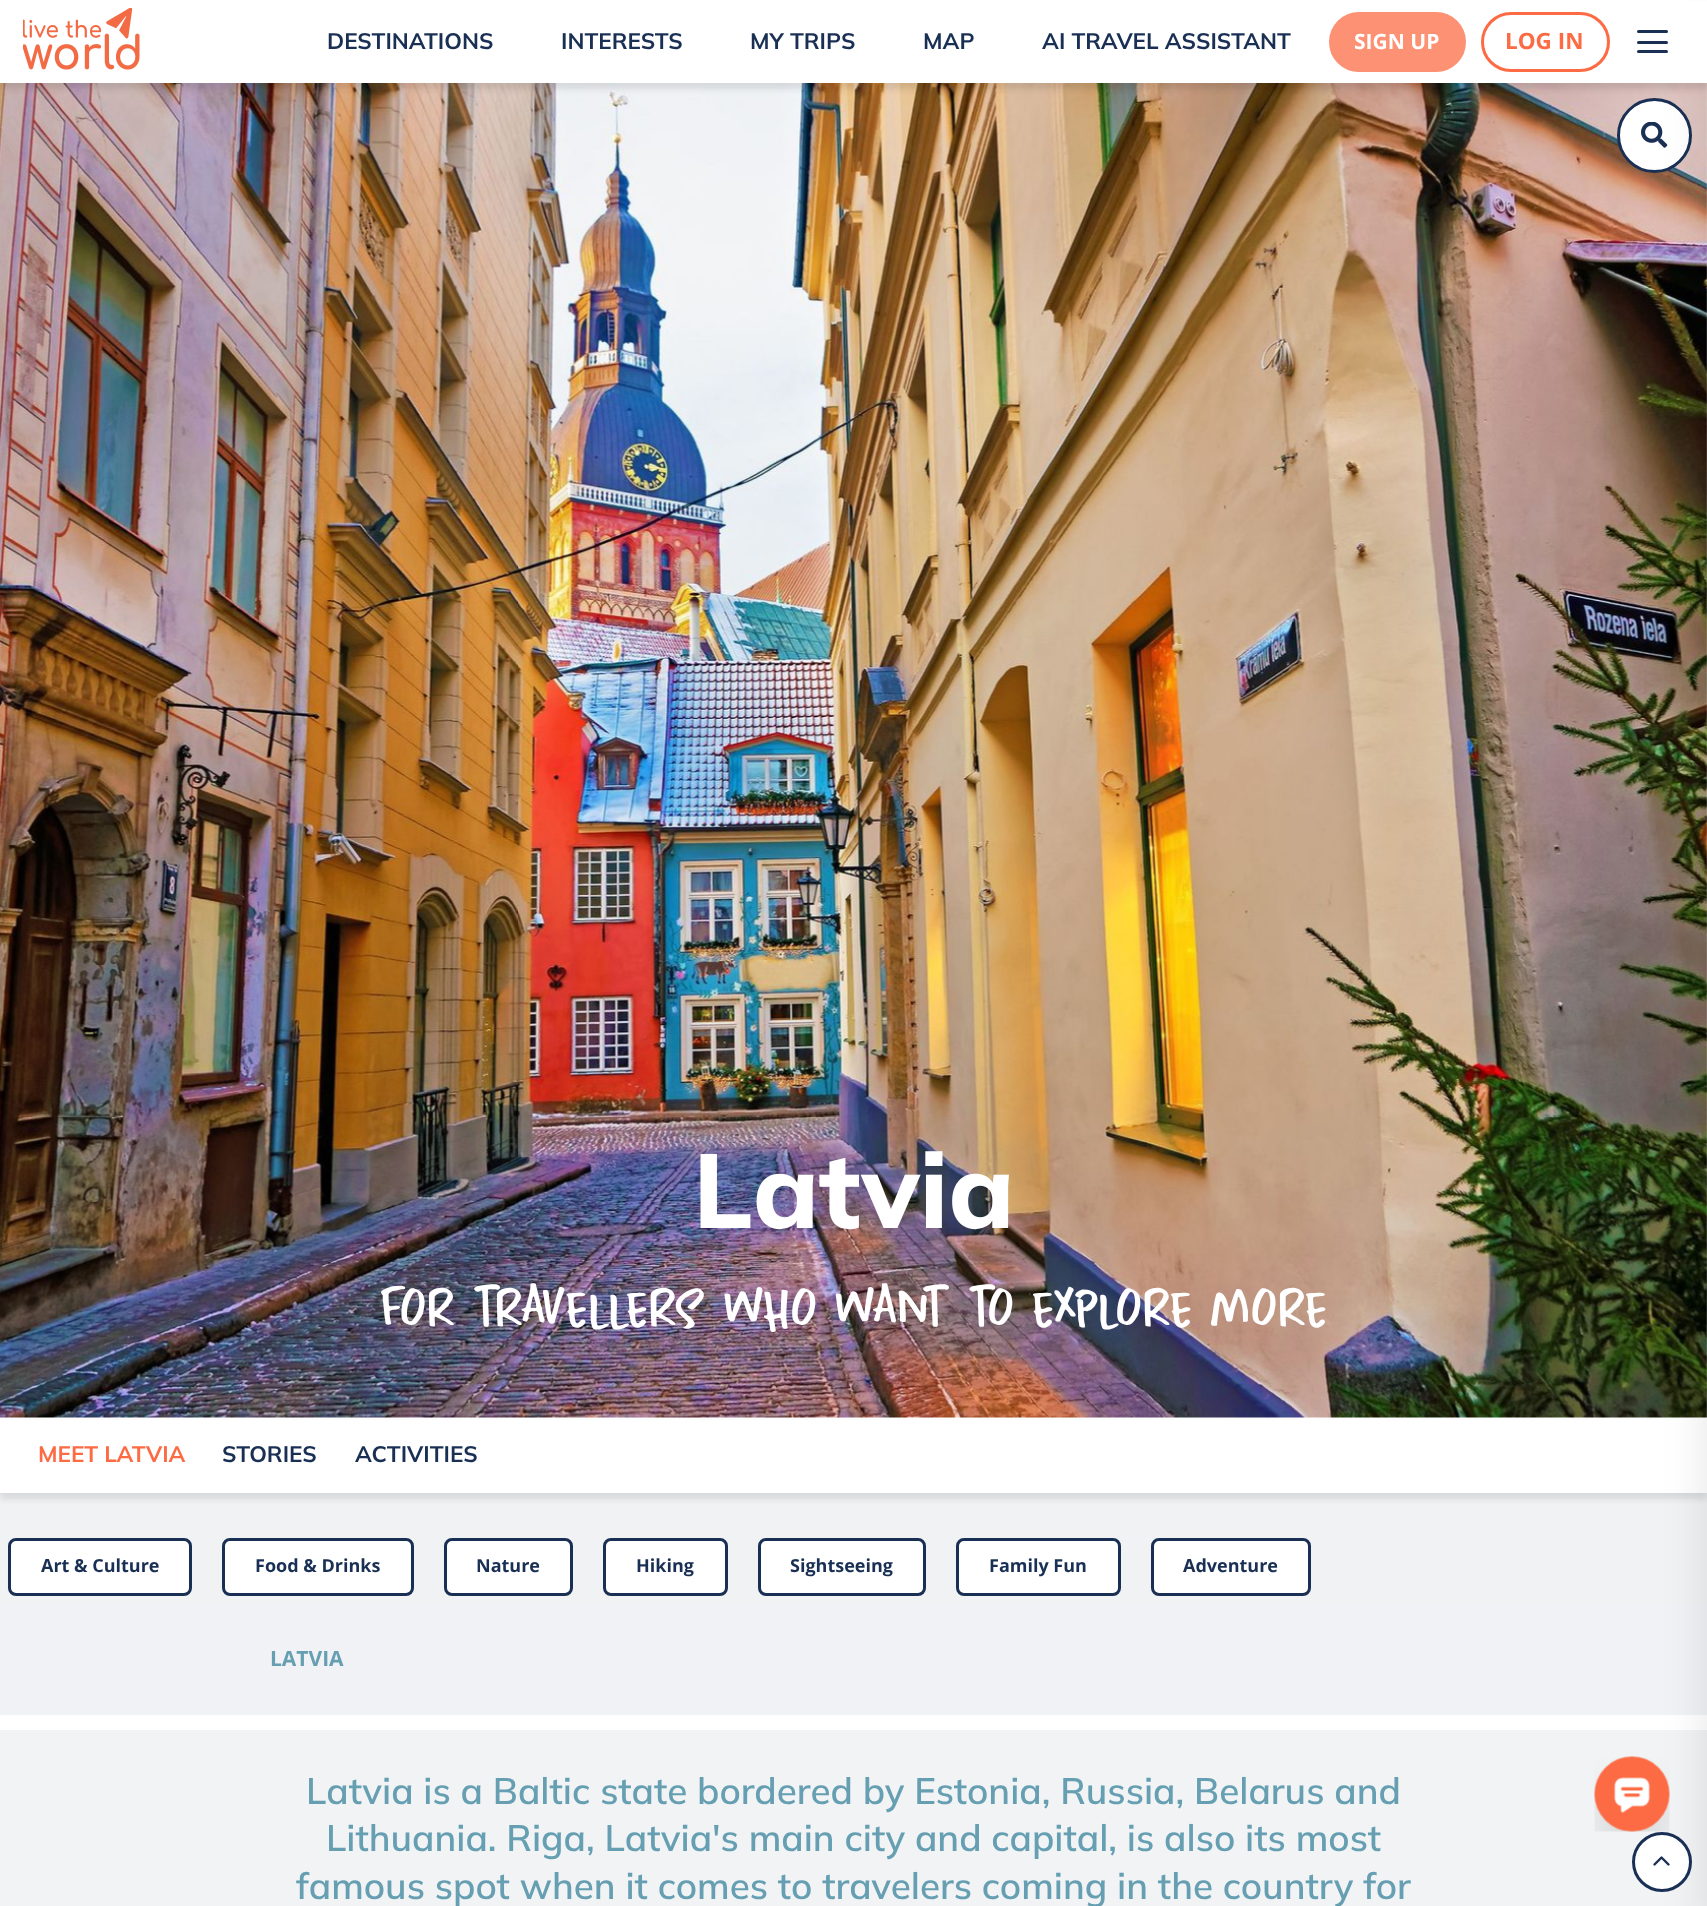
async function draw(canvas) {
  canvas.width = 1707
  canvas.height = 1906
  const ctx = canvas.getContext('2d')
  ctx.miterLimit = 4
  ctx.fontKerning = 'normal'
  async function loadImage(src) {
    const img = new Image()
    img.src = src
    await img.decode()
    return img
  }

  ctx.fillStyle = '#fff'
  ctx.fillRect(0, 0, 1707, 1906)
  ctx.drawImage(await loadImage('image2.png'), 0, 83, 1707, 1335)
  ctx.beginPath()
  ctx.arc(1654.5, 135.5, 36, 0, 2 * Math.PI)
  ctx.fill()
  ctx.strokeStyle = '#192f54'
  ctx.lineWidth = 3
  ctx.stroke()
  ctx.fillStyle = '#0000001a'
  ctx.filter = 'blur(3px)'
  ctx.beginPath()
  ctx.rect(0, 6, 1707, 83)
  ctx.fill()
  ctx.filter = 'none'
  ctx.drawImage(await loadImage('image1.png'), 1641, 122, 27, 26)
  ctx.fillStyle = '#f1f2f4'
  ctx.fillRect(0, 1493, 1707, 111)
  ctx.fillStyle = '#0000001a'
  ctx.filter = 'blur(3px)'
  ctx.beginPath()
  ctx.rect(0, 1424, 1707, 75)
  ctx.fill()
  ctx.filter = 'none'
  ctx.fillStyle = '#fff'
  ctx.fillRect(0, 1420, 1707, 73)
  ctx.fillStyle = '#f1f2f5'
  ctx.fillRect(0, 1604, 1707, 111)
  ctx.fillStyle = '#f1f3f5'
  ctx.fillRect(0, 1730, 1707, 176)
  ctx.fillStyle = '#0000001a'
  ctx.filter = 'blur(22.5px)'
  ctx.beginPath()
  ctx.rect(1707, 30, 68, 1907)
  ctx.fill()
  ctx.filter = 'none'
  ctx.fillStyle = '#fff'
  ctx.fillRect(0, 1, 1707, 82)
  ctx.drawImage(await loadImage('image0.png'), 23, 8, 117, 62)
  ctx.font = 'bold 22.5px Mulish'
  ctx.fillStyle = '#192f54'
  ctx.fillText('DESTINATIONS', 327, 49)
  ctx.fillText('INTERESTS', 561, 49)
  ctx.fillText('MY TRIPS', 750, 49)
  ctx.fillText('MAP', 923, 49)
  ctx.fillText('AI TRAVEL ASSISTANT', 1042, 49)
  ctx.fillStyle = '#fd9173'
  ctx.beginPath()
  ctx.roundRect(1330.5, 13.5, 134, 57, 28.5)
  ctx.fill()
  ctx.strokeStyle = '#fd9173'
  ctx.stroke()
  ctx.font = 'bold 21px Open Sans'
  ctx.fillStyle = '#fff'
  ctx.fillText('SIGN UP', 1354, 49)
  ctx.beginPath()
  ctx.roundRect(1482.5, 13.5, 126, 57, 28.5)
  ctx.strokeStyle = '#fc6b43'
  ctx.stroke()
  ctx.font = 'bold 22.5px Open Sans'
  ctx.fillStyle = '#fc6b43'
  ctx.fillText('LOG IN', 1505, 49)
  ctx.fillStyle = '#192f54'
  ctx.beginPath()
  ctx.roundRect(1637, 30, 31, 3, 1.5)
  ctx.fill()
  ctx.beginPath()
  ctx.roundRect(1637, 41, 31, 3, 1.5)
  ctx.fill()
  ctx.beginPath()
  ctx.roundRect(1637, 50, 31, 3, 1.5)
  ctx.fill()
  ctx.font = '800 105px Mulish'
  ctx.fillStyle = '#fff'
  ctx.fillText('Latvia', 693, 1228)
  ctx.font = '73.5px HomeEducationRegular'
  ctx.fillText('For travellers who want to explore more', 379, 1332)
  ctx.font = 'bold 22.5px Mulish'
  ctx.fillStyle = '#fc6b43'
  ctx.fillText('MEET LATVIA', 38, 1462)
  ctx.fillStyle = '#192f54'
  ctx.fillText('STORIES', 222, 1462)
  ctx.fillText('ACTIVITIES', 355, 1462)
  ctx.fillStyle = '#fff'
  ctx.beginPath()
  ctx.roundRect(9.5, 1539.5, 181, 55, 6.5)
  ctx.fill()
  ctx.strokeStyle = '#192f54'
  ctx.stroke()
  ctx.font = 'bold 18px Open Sans'
  ctx.fillStyle = '#192f54'
  ctx.fillText('Art & Culture', 41, 1572)
  ctx.fillStyle = '#fff'
  ctx.beginPath()
  ctx.roundRect(223.5, 1539.5, 189, 55, 6.5)
  ctx.fill()
  ctx.stroke()
  ctx.fillStyle = '#192f54'
  ctx.fillText('Food & Drinks', 255, 1572)
  ctx.fillStyle = '#fff'
  ctx.beginPath()
  ctx.roundRect(445.5, 1539.5, 126, 55, 6.5)
  ctx.fill()
  ctx.stroke()
  ctx.fillStyle = '#192f54'
  ctx.fillText('Nature', 476, 1572)
  ctx.fillStyle = '#fff'
  ctx.beginPath()
  ctx.roundRect(604.5, 1539.5, 122, 55, 6.5)
  ctx.fill()
  ctx.stroke()
  ctx.fillStyle = '#192f54'
  ctx.fillText('Hiking', 636, 1572)
  ctx.fillStyle = '#fff'
  ctx.beginPath()
  ctx.roundRect(759.5, 1539.5, 165, 55, 6.5)
  ctx.fill()
  ctx.stroke()
  ctx.fillStyle = '#192f54'
  ctx.fillText('Sightseeing', 790, 1572)
  ctx.fillStyle = '#fff'
  ctx.beginPath()
  ctx.roundRect(957.5, 1539.5, 162, 55, 6.5)
  ctx.fill()
  ctx.stroke()
  ctx.fillStyle = '#192f54'
  ctx.fillText('Family Fun', 989, 1572)
  ctx.fillStyle = '#fff'
  ctx.beginPath()
  ctx.roundRect(1152.5, 1539.5, 157, 55, 6.5)
  ctx.fill()
  ctx.stroke()
  ctx.fillStyle = '#192f54'
  ctx.fillText('Adventure', 1183, 1572)
  ctx.font = 'bold 21px Open Sans'
  ctx.fillStyle = '#669fb2'
  ctx.fillText('LATVIA', 270, 1666)
  ctx.font = '600 36.75px Mulish'
  ctx.fillText('Latvia is a Baltic state bordered by Estonia, Russia, Belarus and', 306, 1804)
  ctx.fillText('Lithuania. Riga, Latvia\'s main city and capital, is also its most', 326, 1851)
  ctx.fillText('famous spot when it comes to travelers coming in the country for', 296, 1899)
  ctx.drawImage(await loadImage('image3.png'), 1594, 1756, 76, 76)
  ctx.fillStyle = '#fff'
  ctx.beginPath()
  ctx.arc(1662, 1862, 28.5, 0, 2 * Math.PI)
  ctx.fill()
  ctx.stroke()
  ctx.beginPath()
  ctx.moveTo(1668.5, 1864.5)
  ctx.lineTo(1661.5, 1857.5)
  ctx.lineTo(1654.5, 1864.5)
  ctx.lineWidth = 2.4
  ctx.lineCap = 'round'
  ctx.lineJoin = 'round'
  ctx.stroke()
}

draw(document.querySelector('canvas'))
